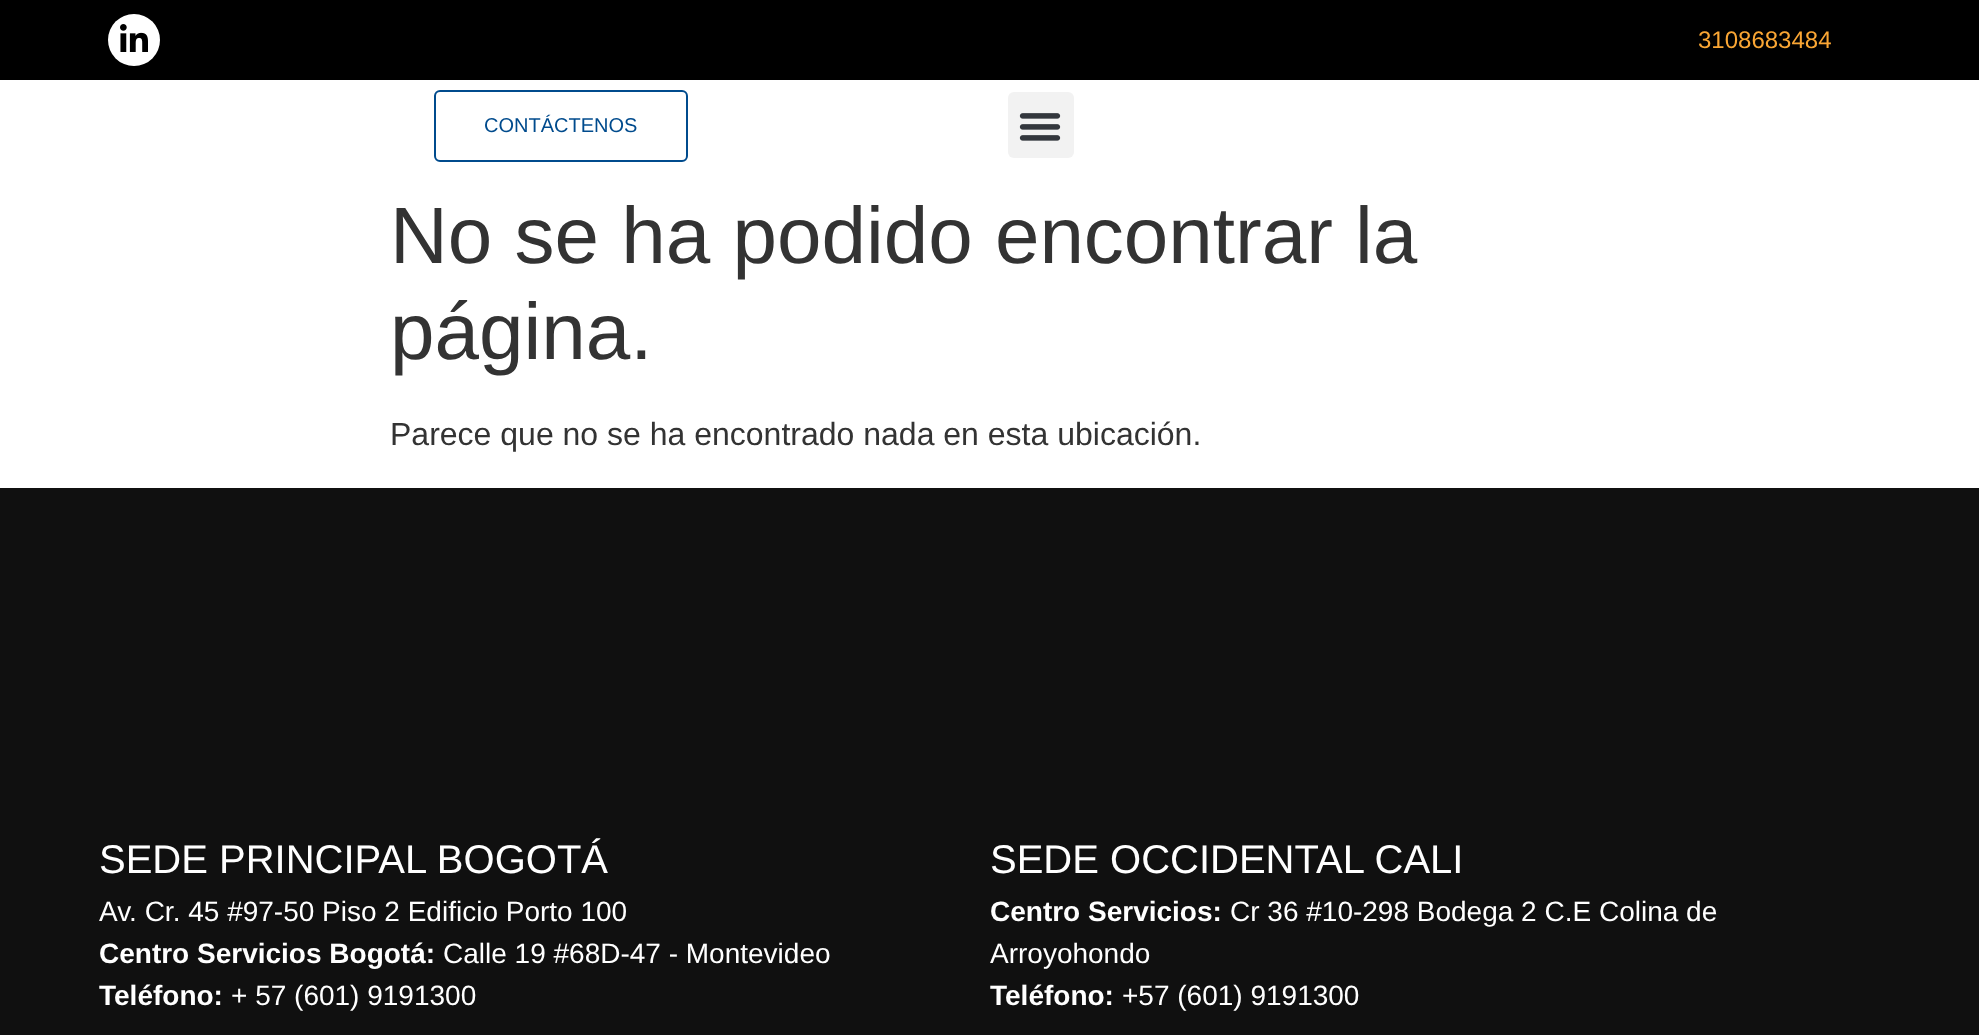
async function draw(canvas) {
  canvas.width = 1979
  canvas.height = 1035
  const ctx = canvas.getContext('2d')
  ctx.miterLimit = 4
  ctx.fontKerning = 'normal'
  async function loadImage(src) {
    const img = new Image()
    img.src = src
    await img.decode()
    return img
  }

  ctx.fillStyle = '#fff'
  ctx.fillRect(0, 0, 1979, 1035)
  ctx.fillStyle = '#000'
  ctx.fillRect(0, 0, 1979, 80)
  ctx.fillStyle = '#fff'
  ctx.beginPath()
  ctx.arc(134, 40, 26, 0, 2 * Math.PI)
  ctx.fill()
  ctx.drawImage(await loadImage('image0.png'), 120, 24, 28, 28)
  ctx.font = '24px Liberation Sans'
  ctx.fillStyle = '#faa634'
  ctx.fillText('3108683484', 1698, 48)
  ctx.beginPath()
  ctx.roundRect(435, 91, 252, 70, 5)
  ctx.strokeStyle = '#004b8d'
  ctx.lineWidth = 2
  ctx.stroke()
  ctx.font = '20px Liberation Sans'
  ctx.fillStyle = '#004b8d'
  ctx.fillText('CONTÁCTENOS', 484, 132)
  ctx.fillStyle = '#f2f2f2'
  ctx.beginPath()
  ctx.roundRect(1008, 92, 66, 66, 6)
  ctx.fill()
  ctx.drawImage(await loadImage('image1.png'), 1019, 113, 42, 28)
  ctx.font = '80px Liberation Sans'
  ctx.fillStyle = '#333'
  ctx.fillText('No se ha podido encontrar la', 390, 263)
  ctx.fillText('página.', 390, 359)
  ctx.font = '32px Liberation Sans'
  ctx.fillText('Parece que no se ha encontrado nada en esta ubicación.', 390, 445)
  ctx.fillStyle = '#101010'
  ctx.fillRect(0, 488, 1979, 547)
  ctx.font = '40px Liberation Sans'
  ctx.fillStyle = '#fff'
  ctx.fillText('SEDE PRINCIPAL BOGOTÁ', 99, 873)
  ctx.font = '28px Liberation Sans'
  ctx.fillText('Av. Cr. 45 #97-50 Piso 2 Edificio Porto 100', 99, 921)
  ctx.font = 'bold 28px Liberation Sans'
  ctx.fillText('Centro Servicios Bogotá:', 99, 963)
  ctx.font = '28px Liberation Sans'
  ctx.fillText('Calle 19 #68D-47 - Montevideo', 443, 963)
  ctx.font = 'bold 28px Liberation Sans'
  ctx.fillText('Teléfono:', 99, 1005)
  ctx.font = '28px Liberation Sans'
  ctx.fillText('+ 57 (601) 9191300', 231, 1005)
  ctx.font = '40px Liberation Sans'
  ctx.fillText('SEDE OCCIDENTAL CALI', 990, 873)
  ctx.font = 'bold 28px Liberation Sans'
  ctx.fillText('Centro Servicios:', 990, 921)
  ctx.font = '28px Liberation Sans'
  ctx.fillText('Cr 36 #10-298 Bodega 2 C.E Colina de', 1230, 921)
  ctx.fillText('Arroyohondo', 990, 963)
  ctx.font = 'bold 28px Liberation Sans'
  ctx.fillText('Teléfono:', 990, 1005)
  ctx.font = '28px Liberation Sans'
  ctx.fillText('+57 (601) 9191300', 1122, 1005)
}

draw(document.querySelector('canvas'))
